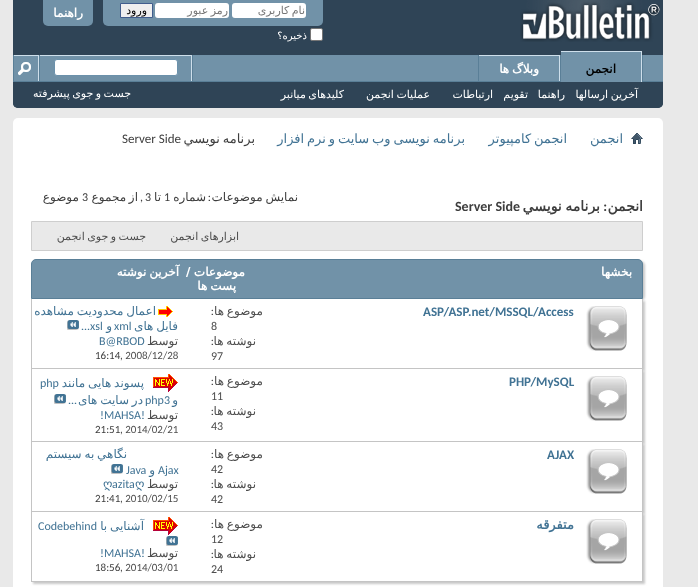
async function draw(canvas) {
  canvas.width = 698
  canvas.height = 587
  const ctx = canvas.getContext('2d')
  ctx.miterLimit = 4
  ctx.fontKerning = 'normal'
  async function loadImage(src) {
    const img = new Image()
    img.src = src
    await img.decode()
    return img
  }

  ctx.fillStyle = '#e9e9e9'
  ctx.fillRect(0, 0, 698, 587)
  ctx.fillStyle = '#2f4456'
  ctx.beginPath()
  ctx.roundRect(13, 0, 650, 108, [0, 0, 5, 5])
  ctx.fill()
  ctx.drawImage(await loadImage('image0.png'), 520, 0, 140, 42)
  ctx.fillStyle = '#7192a8'
  ctx.beginPath()
  ctx.roundRect(103, 0, 220, 26, [0, 0, 5, 5])
  ctx.fill()
  ctx.fillStyle = '#fff'
  ctx.beginPath()
  ctx.roundRect(232, 3, 74, 15, 3)
  ctx.fill()
  ctx.wordSpacing = '-1px'
  ctx.direction = 'rtl'
  ctx.font = '11px DejaVu Sans'
  ctx.fillStyle = '#777'
  ctx.fillText('نام کاربری', 305, 14)
  ctx.fillStyle = '#fff'
  ctx.beginPath()
  ctx.roundRect(155, 3, 74, 15, 3)
  ctx.fill()
  ctx.save()
  ctx.beginPath()
  ctx.rect(156, 4, 72, 13)
  ctx.clip()
  ctx.fillStyle = '#777'
  ctx.fillText('رمز عبور', 228, 14)
  ctx.restore()
  ctx.fillStyle = '#efefef'
  ctx.beginPath()
  ctx.rect(120.5, 3.5, 32, 14)
  ctx.fill()
  ctx.strokeStyle = '#415d8d'
  ctx.stroke()
  ctx.wordSpacing = '0px'
  ctx.fillStyle = '#000'
  ctx.fillText('ورود', 147, 14)
  ctx.fillStyle = '#fff'
  ctx.beginPath()
  ctx.roundRect(310.5, 28.5, 12, 12, 1.5)
  ctx.fill()
  ctx.strokeStyle = '#767676'
  ctx.stroke()
  ctx.font = '10px DejaVu Sans'
  ctx.fillText('ذخیره؟', 307, 39)
  ctx.fillStyle = '#7192a8'
  ctx.beginPath()
  ctx.roundRect(43, 0, 50, 26, [0, 0, 5, 5])
  ctx.fill()
  ctx.font = 'bold 12px DejaVu Sans'
  ctx.fillStyle = '#fff'
  ctx.fillText('راهنما', 83, 17)
  ctx.fillStyle = '#2f4456'
  ctx.beginPath()
  ctx.roundRect(13, 55, 650, 53, [0, 0, 5, 5])
  ctx.fill()
  ctx.fillStyle = '#7192a8'
  ctx.fillRect(14, 55, 649, 26)
  ctx.fillStyle = '#5a7f97'
  ctx.fillRect(642, 55, 1, 26)
  ctx.fillRect(560, 55, 1, 26)
  ctx.fillRect(478, 55, 1, 27)
  ctx.fillStyle = '#cedfeb'
  ctx.fillRect(479, 55, 81, 1)
  ctx.fillRect(559, 55, 1, 27)
  ctx.fillStyle = '#5a7f97'
  ctx.fillRect(13, 81, 650, 1)
  ctx.fillStyle = '#7192a8'
  ctx.fillRect(561, 52, 80, 30)
  ctx.fillStyle = '#cedfeb'
  ctx.fillRect(561, 51, 81, 1)
  ctx.fillRect(641, 51, 1, 31)
  ctx.fillStyle = '#000'
  ctx.fillText('انجمن', 616, 73)
  ctx.wordSpacing = '-1px'
  ctx.fillStyle = '#fff'
  ctx.fillText('وبلاگ ها', 539, 73)
  ctx.font = '11px DejaVu Sans'
  ctx.fillText('آخرین ارسالها', 638, 98)
  ctx.wordSpacing = '0px'
  ctx.fillText('راهنما', 565, 98)
  ctx.fillText('تقویم', 528, 98)
  ctx.fillText('ارتباطات', 493, 98)
  ctx.wordSpacing = '-1px'
  ctx.fillText('عملیات انجمن', 430, 98)
  ctx.fillText('کلیدهای میانبر', 344, 98)
  ctx.fillStyle = '#5a7f97'
  ctx.fillRect(192, 55, 1, 26)
  ctx.fillStyle = '#cedfeb'
  ctx.fillRect(40, 55, 152, 1)
  ctx.fillRect(191, 55, 1, 26)
  ctx.fillStyle = '#fff'
  ctx.beginPath()
  ctx.roundRect(54.5, 59.5, 123, 16, 2.5)
  ctx.fill()
  ctx.strokeStyle = '#6b91ab'
  ctx.stroke()
  ctx.fillStyle = '#5a7f97'
  ctx.fillRect(39, 55, 1, 26)
  ctx.fillRect(13, 55, 1, 26)
  ctx.fillStyle = '#cedfeb'
  ctx.fillRect(14, 55, 25, 1)
  ctx.fillRect(38, 55, 1, 26)
  ctx.drawImage(await loadImage('image1.png'), 18, 62, 13, 14)
  ctx.fillStyle = '#fff'
  ctx.fillText('جست و جوی پیشرفته', 131, 97)
  ctx.beginPath()
  ctx.roundRect(13, 118, 650, 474, 5)
  ctx.fill()
  ctx.drawImage(await loadImage('image2.png'), 631, 133, 12, 11)
  ctx.wordSpacing = '0px'
  ctx.font = '13px DejaVu Sans'
  ctx.fillStyle = '#417394'
  ctx.fillText('انجمن', 623, 143)
  ctx.wordSpacing = '-1.25px'
  ctx.fillText('انجمن کامپیوتر', 567, 143)
  ctx.fillText('برنامه نویسی وب سایت و نرم افزار', 465, 143)
  ctx.fillStyle = '#3e3e3e'
  ctx.fillText('برنامه نويسي', 255, 143)
  ctx.wordSpacing = '0px'
  ctx.direction = 'ltr'
  ctx.font = '13px Carlito'
  ctx.fillText('Server Side', 122, 143)
  ctx.wordSpacing = '-1px'
  ctx.direction = 'rtl'
  ctx.font = '12px DejaVu Sans'
  ctx.fillText('نمایش موضوعات', 298, 201)
  ctx.wordSpacing = '0px'
  ctx.font = '12px Carlito'
  ctx.fillText(':', 211, 201)
  ctx.font = '12px DejaVu Sans'
  ctx.fillText('شماره', 206, 201)
  ctx.direction = 'ltr'
  ctx.font = '12px Carlito'
  ctx.fillText('1', 164, 201)
  ctx.direction = 'rtl'
  ctx.font = '12px DejaVu Sans'
  ctx.fillText('تا', 161, 201)
  ctx.direction = 'ltr'
  ctx.font = '12px Carlito'
  ctx.fillText('3', 145, 201)
  ctx.direction = 'rtl'
  ctx.fillText(',', 143, 201)
  ctx.wordSpacing = '-1px'
  ctx.font = '12px DejaVu Sans'
  ctx.fillText('از مجموع', 138, 201)
  ctx.wordSpacing = '0px'
  ctx.direction = 'ltr'
  ctx.font = '12px Carlito'
  ctx.fillText('‍3', 82, 201)
  ctx.direction = 'rtl'
  ctx.font = '12px DejaVu Sans'
  ctx.fillText('موضوع', 79, 201)
  ctx.font = 'bold 14px DejaVu Sans'
  ctx.fillText('انجمن', 643, 211)
  ctx.font = 'bold 14px Carlito'
  ctx.fillText(':', 607, 211)
  ctx.wordSpacing = '-1px'
  ctx.font = 'bold 14px DejaVu Sans'
  ctx.fillText('برنامه نويسي', 600, 211)
  ctx.wordSpacing = '0px'
  ctx.direction = 'ltr'
  ctx.font = 'bold 14px Carlito'
  ctx.fillText('Server Side', 455, 211)
  ctx.fillStyle = '#e9e9e9'
  ctx.beginPath()
  ctx.rect(31.5, 221.5, 611, 29)
  ctx.fill()
  ctx.strokeStyle = '#cecece'
  ctx.stroke()
  ctx.wordSpacing = '-1px'
  ctx.direction = 'rtl'
  ctx.font = '11px DejaVu Sans'
  ctx.fillStyle = '#4e4e4e'
  ctx.fillText('ابزارهای انجمن', 239, 240)
  ctx.fillText('جست و جوی انجمن', 146, 240)
  ctx.fillStyle = '#c8c8c8'
  ctx.filter = 'blur(1px)'
  ctx.beginPath()
  ctx.roundRect(33, 261, 612, 40, 5)
  ctx.fill()
  ctx.filter = 'none'
  ctx.fillStyle = '#7192a8'
  ctx.beginPath()
  ctx.roundRect(31.5, 259.5, 611, 39, [4.5, 4.5, 0, 0])
  ctx.fill()
  ctx.strokeStyle = '#5a7f97'
  ctx.stroke()
  ctx.wordSpacing = '0px'
  ctx.font = 'bold 12px DejaVu Sans'
  ctx.fillStyle = '#fff'
  ctx.fillText('بخشها', 632, 276)
  ctx.fillText('موضوعات /', 245, 276)
  ctx.wordSpacing = '-1px'
  ctx.fillText('پست ها', 236, 290)
  ctx.fillText('آخرين نوشته', 179, 276)
  ctx.fillStyle = '#c8c8c8'
  ctx.filter = 'blur(1px)'
  ctx.beginPath()
  ctx.rect(33, 301, 612, 70)
  ctx.fill()
  ctx.filter = 'none'
  ctx.fillStyle = '#fff'
  ctx.fillRect(32, 299, 610, 69)
  ctx.fillStyle = '#c4c4c4'
  ctx.fillRect(642, 299, 1, 70)
  ctx.fillRect(31, 368, 612, 1)
  ctx.fillRect(31, 299, 1, 70)
  ctx.drawImage(await loadImage('image3.png'), 586, 306, 41, 45)
  ctx.wordSpacing = '0px'
  ctx.direction = 'ltr'
  ctx.font = 'bold 13px Carlito'
  ctx.fillStyle = '#417394'
  ctx.fillText('ASP/ASP.net/MSSQL/Access', 423, 316)
  ctx.wordSpacing = '-1px'
  ctx.direction = 'rtl'
  ctx.font = '12px DejaVu Sans'
  ctx.fillStyle = '#4e4e4e'
  ctx.fillText('موضوع ها', 263, 315)
  ctx.wordSpacing = '0px'
  ctx.font = '12px Carlito'
  ctx.fillText(':', 214, 315)
  ctx.direction = 'ltr'
  ctx.fillText('8', 211, 330)
  ctx.wordSpacing = '-1px'
  ctx.direction = 'rtl'
  ctx.font = '12px DejaVu Sans'
  ctx.fillText('نوشته ها', 256, 345)
  ctx.wordSpacing = '0px'
  ctx.font = '12px Carlito'
  ctx.fillText(':', 214, 345)
  ctx.direction = 'ltr'
  ctx.fillText('97', 211, 360)
  ctx.drawImage(await loadImage('image4.png'), 158, 306, 15, 11)
  ctx.wordSpacing = '-1px'
  ctx.direction = 'rtl'
  ctx.font = '12px DejaVu Sans'
  ctx.fillStyle = '#417394'
  ctx.fillText('اعمال محدوديت مشاهده', 156, 315)
  ctx.save()
  ctx.beginPath()
  ctx.rect(32, 304, 146, 30)
  ctx.clip()
  ctx.fillText('فايل های', 178, 330)
  ctx.restore()
  ctx.wordSpacing = '0px'
  ctx.direction = 'ltr'
  ctx.font = '12px Carlito'
  ctx.fillText('xml', 114, 330)
  ctx.direction = 'rtl'
  ctx.font = '12px DejaVu Sans'
  ctx.fillText('و', 112, 330)
  ctx.direction = 'ltr'
  ctx.font = '12px Carlito'
  ctx.fillText('...xsl', 81, 330)
  ctx.drawImage(await loadImage('image5.png'), 67, 320, 12, 10)
  ctx.direction = 'rtl'
  ctx.font = '12px DejaVu Sans'
  ctx.fillStyle = '#4e4e4e'
  ctx.fillText('توسط', 178, 345)
  ctx.direction = 'ltr'
  ctx.font = '12px Carlito'
  ctx.fillStyle = '#417394'
  ctx.fillText('B@RBOD', 99, 345)
  ctx.font = '11px Carlito'
  ctx.fillStyle = '#4e4e4e'
  ctx.fillText(', 2008/12/28', 120, 359)
  ctx.fillStyle = '#3e3e3e'
  ctx.fillText('16:14', 95, 359)
  ctx.fillStyle = '#c8c8c8'
  ctx.filter = 'blur(1px)'
  ctx.beginPath()
  ctx.rect(33, 371, 612, 73)
  ctx.fill()
  ctx.filter = 'none'
  ctx.fillStyle = '#fff'
  ctx.fillRect(32, 369, 610, 72)
  ctx.fillStyle = '#c4c4c4'
  ctx.fillRect(642, 369, 1, 73)
  ctx.fillRect(31, 441, 612, 1)
  ctx.fillRect(31, 369, 1, 73)
  ctx.drawImage(await loadImage('image3.png'), 586, 376, 41, 45)
  ctx.font = 'bold 13px Carlito'
  ctx.fillStyle = '#417394'
  ctx.fillText('PHP/MySQL', 509, 386)
  ctx.wordSpacing = '-1px'
  ctx.direction = 'rtl'
  ctx.font = '12px DejaVu Sans'
  ctx.fillStyle = '#4e4e4e'
  ctx.fillText('موضوع ها', 263, 385)
  ctx.wordSpacing = '0px'
  ctx.font = '12px Carlito'
  ctx.fillText(':', 214, 385)
  ctx.direction = 'ltr'
  ctx.fillText('11', 211, 400)
  ctx.wordSpacing = '-1px'
  ctx.direction = 'rtl'
  ctx.font = '12px DejaVu Sans'
  ctx.fillText('نوشته ها', 256, 415)
  ctx.wordSpacing = '0px'
  ctx.font = '12px Carlito'
  ctx.fillText(':', 214, 415)
  ctx.direction = 'ltr'
  ctx.fillText('43', 211, 430)
  ctx.drawImage(await loadImage('image6.png'), 153, 374, 25, 18)
  ctx.wordSpacing = '-1px'
  ctx.direction = 'rtl'
  ctx.font = '12px DejaVu Sans'
  ctx.fillStyle = '#417394'
  ctx.fillText('پسوند هایی مانند', 144, 387)
  ctx.wordSpacing = '0px'
  ctx.direction = 'ltr'
  ctx.font = '12px Carlito'
  ctx.fillText('php', 40, 387)
  ctx.direction = 'rtl'
  ctx.font = '12px DejaVu Sans'
  ctx.fillText('و', 178, 404)
  ctx.direction = 'ltr'
  ctx.font = '12px Carlito'
  ctx.fillText('php3', 145, 404)
  ctx.wordSpacing = '-1px'
  ctx.direction = 'rtl'
  ctx.font = '12px DejaVu Sans'
  ctx.fillText('در سایت های', 143, 404)
  ctx.wordSpacing = '0px'
  ctx.font = '12px Carlito'
  ctx.fillText('...', 77, 404)
  ctx.drawImage(await loadImage('image5.png'), 54, 394, 12, 10)
  ctx.font = '12px DejaVu Sans'
  ctx.fillStyle = '#4e4e4e'
  ctx.fillText('توسط', 178, 419)
  ctx.direction = 'ltr'
  ctx.font = '12px Carlito'
  ctx.fillStyle = '#417394'
  ctx.fillText('!MAHSA!', 100, 419)
  ctx.font = '11px Carlito'
  ctx.fillStyle = '#4e4e4e'
  ctx.fillText(', 2014/02/21', 120, 433)
  ctx.fillStyle = '#3e3e3e'
  ctx.fillText('21:51', 95, 433)
  ctx.fillStyle = '#c8c8c8'
  ctx.filter = 'blur(1px)'
  ctx.beginPath()
  ctx.rect(33, 444, 612, 70)
  ctx.fill()
  ctx.filter = 'none'
  ctx.fillStyle = '#fff'
  ctx.fillRect(32, 442, 610, 69)
  ctx.fillStyle = '#c4c4c4'
  ctx.fillRect(642, 442, 1, 70)
  ctx.fillRect(31, 511, 612, 1)
  ctx.fillRect(31, 442, 1, 70)
  ctx.drawImage(await loadImage('image3.png'), 586, 449, 41, 45)
  ctx.font = 'bold 13px Carlito'
  ctx.fillStyle = '#417394'
  ctx.fillText('AJAX', 547, 459)
  ctx.wordSpacing = '-1px'
  ctx.direction = 'rtl'
  ctx.font = '12px DejaVu Sans'
  ctx.fillStyle = '#4e4e4e'
  ctx.fillText('موضوع ها', 263, 458)
  ctx.wordSpacing = '0px'
  ctx.font = '12px Carlito'
  ctx.fillText(':', 214, 458)
  ctx.direction = 'ltr'
  ctx.fillText('42', 211, 473)
  ctx.wordSpacing = '-1px'
  ctx.direction = 'rtl'
  ctx.font = '12px DejaVu Sans'
  ctx.fillText('نوشته ها', 256, 488)
  ctx.wordSpacing = '0px'
  ctx.font = '12px Carlito'
  ctx.fillText(':', 214, 488)
  ctx.direction = 'ltr'
  ctx.fillText('42', 211, 503)
  ctx.wordSpacing = '-1px'
  ctx.direction = 'rtl'
  ctx.font = '12px DejaVu Sans'
  ctx.fillStyle = '#417394'
  ctx.fillText('نگاهي به سيستم', 127, 458)
  ctx.wordSpacing = '0px'
  ctx.direction = 'ltr'
  ctx.font = '12px Carlito'
  ctx.fillText('Ajax', 158, 474)
  ctx.direction = 'rtl'
  ctx.font = '12px DejaVu Sans'
  ctx.fillText('و', 155, 474)
  ctx.direction = 'ltr'
  ctx.font = '12px Carlito'
  ctx.fillText('Java', 126, 474)
  ctx.drawImage(await loadImage('image5.png'), 111, 464, 12, 10)
  ctx.direction = 'rtl'
  ctx.font = '12px DejaVu Sans'
  ctx.fillStyle = '#4e4e4e'
  ctx.fillText('توسط', 178, 488)
  ctx.direction = 'ltr'
  ctx.fillStyle = '#417394'
  ctx.fillText('ღ', 135, 488)
  ctx.font = '12px Carlito'
  ctx.fillText('azita', 112, 488)
  ctx.font = '12px DejaVu Sans'
  ctx.fillText('ღ', 103, 488)
  ctx.font = '11px Carlito'
  ctx.fillStyle = '#4e4e4e'
  ctx.fillText(', 2010/02/15', 120, 502)
  ctx.fillStyle = '#3e3e3e'
  ctx.fillText('21:41', 95, 502)
  ctx.fillStyle = '#c8c8c8'
  ctx.filter = 'blur(1px)'
  ctx.beginPath()
  ctx.rect(33, 514, 612, 70)
  ctx.fill()
  ctx.filter = 'none'
  ctx.fillStyle = '#fff'
  ctx.fillRect(32, 512, 610, 69)
  ctx.fillStyle = '#c4c4c4'
  ctx.fillRect(642, 512, 1, 70)
  ctx.fillRect(31, 581, 612, 1)
  ctx.fillRect(31, 512, 1, 70)
  ctx.drawImage(await loadImage('image3.png'), 586, 519, 41, 45)
  ctx.direction = 'rtl'
  ctx.font = 'bold 13px DejaVu Sans'
  ctx.fillStyle = '#417394'
  ctx.fillText('متفرقه', 574, 529)
  ctx.wordSpacing = '-1px'
  ctx.font = '12px DejaVu Sans'
  ctx.fillStyle = '#4e4e4e'
  ctx.fillText('موضوع ها', 263, 528)
  ctx.wordSpacing = '0px'
  ctx.font = '12px Carlito'
  ctx.fillText(':', 214, 528)
  ctx.direction = 'ltr'
  ctx.fillText('12', 211, 543)
  ctx.wordSpacing = '-1px'
  ctx.direction = 'rtl'
  ctx.font = '12px DejaVu Sans'
  ctx.fillText('نوشته ها', 256, 558)
  ctx.wordSpacing = '0px'
  ctx.font = '12px Carlito'
  ctx.fillText(':', 214, 558)
  ctx.direction = 'ltr'
  ctx.fillText('24', 211, 573)
  ctx.drawImage(await loadImage('image6.png'), 153, 517, 25, 18)
  ctx.wordSpacing = '-1px'
  ctx.direction = 'rtl'
  ctx.font = '12px DejaVu Sans'
  ctx.fillStyle = '#417394'
  ctx.fillText('آشنایی با', 144, 530)
  ctx.wordSpacing = '0px'
  ctx.direction = 'ltr'
  ctx.font = '12px Carlito'
  ctx.fillText('Codebehind', 38, 530)
  ctx.drawImage(await loadImage('image5.png'), 166, 536, 12, 10)
  ctx.direction = 'rtl'
  ctx.font = '12px DejaVu Sans'
  ctx.fillStyle = '#4e4e4e'
  ctx.fillText('توسط', 178, 557)
  ctx.direction = 'ltr'
  ctx.font = '12px Carlito'
  ctx.fillStyle = '#417394'
  ctx.fillText('!MAHSA!', 100, 557)
  ctx.font = '11px Carlito'
  ctx.fillStyle = '#4e4e4e'
  ctx.fillText(', 2014/03/01', 120, 571)
  ctx.fillStyle = '#3e3e3e'
  ctx.fillText('18:56', 95, 571)
}

draw(document.querySelector('canvas'))
